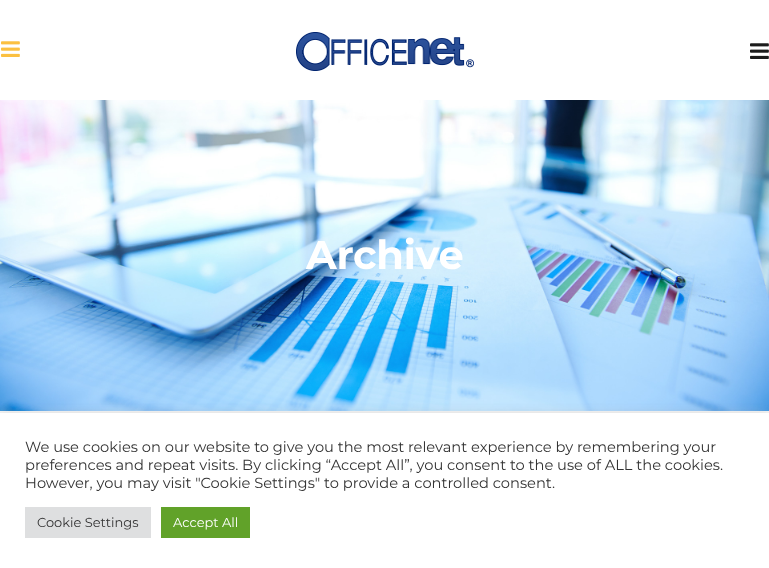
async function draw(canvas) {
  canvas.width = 769
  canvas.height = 568
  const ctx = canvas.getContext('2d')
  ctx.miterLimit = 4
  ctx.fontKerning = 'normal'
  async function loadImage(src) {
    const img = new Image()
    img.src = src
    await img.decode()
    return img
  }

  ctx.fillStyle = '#f6f6f6'
  ctx.fillRect(0, 0, 769, 568)
  ctx.fillStyle = '#fff'
  ctx.fillRect(0, 0, 769, 100)
  ctx.drawImage(await loadImage('image0.png'), 1, 41, 19, 16)
  ctx.drawImage(await loadImage('image1.png'), 296, 32, 178, 39)
  ctx.drawImage(await loadImage('image2.png'), 750, 43, 19, 16)
  ctx.drawImage(await loadImage('image3.png'), 0, 100, 769, 311)
  ctx.letterSpacing = '-0.25px'
  ctx.font = 'bold 40px Montserrat'
  ctx.fillText('Archive', 306, 269)
  ctx.fillStyle = '#acabab4d'
  ctx.filter = 'blur(5px)'
  ctx.beginPath()
  ctx.rect(0, 412, 769, 155)
  ctx.fill()
  ctx.filter = 'none'
  ctx.fillStyle = '#fff'
  ctx.fillRect(0, 413, 769, 155)
  ctx.letterSpacing = '0px'
  ctx.font = '14.65px Montserrat'
  ctx.fillStyle = '#333'
  ctx.fillText('We use cookies on our website to give you the most relevant experience by remembering your', 25, 452)
  ctx.fillText('preferences and repeat visits. By clicking “Accept All”, you consent to the use of ALL the cookies.', 25, 470)
  ctx.fillText('However, you may visit "Cookie Settings" to provide a controlled consent.', 25, 488)
  ctx.fillStyle = '#dedfe0'
  ctx.fillRect(25, 507, 126, 31)
  ctx.font = '13px Montserrat'
  ctx.fillStyle = '#333'
  ctx.fillText('Cookie Settings', 37, 527)
  ctx.fillStyle = '#61a229'
  ctx.fillRect(161, 507, 89, 31)
  ctx.fillStyle = '#fff'
  ctx.fillText('Accept All', 173, 527)
}

draw(document.querySelector('canvas'))
